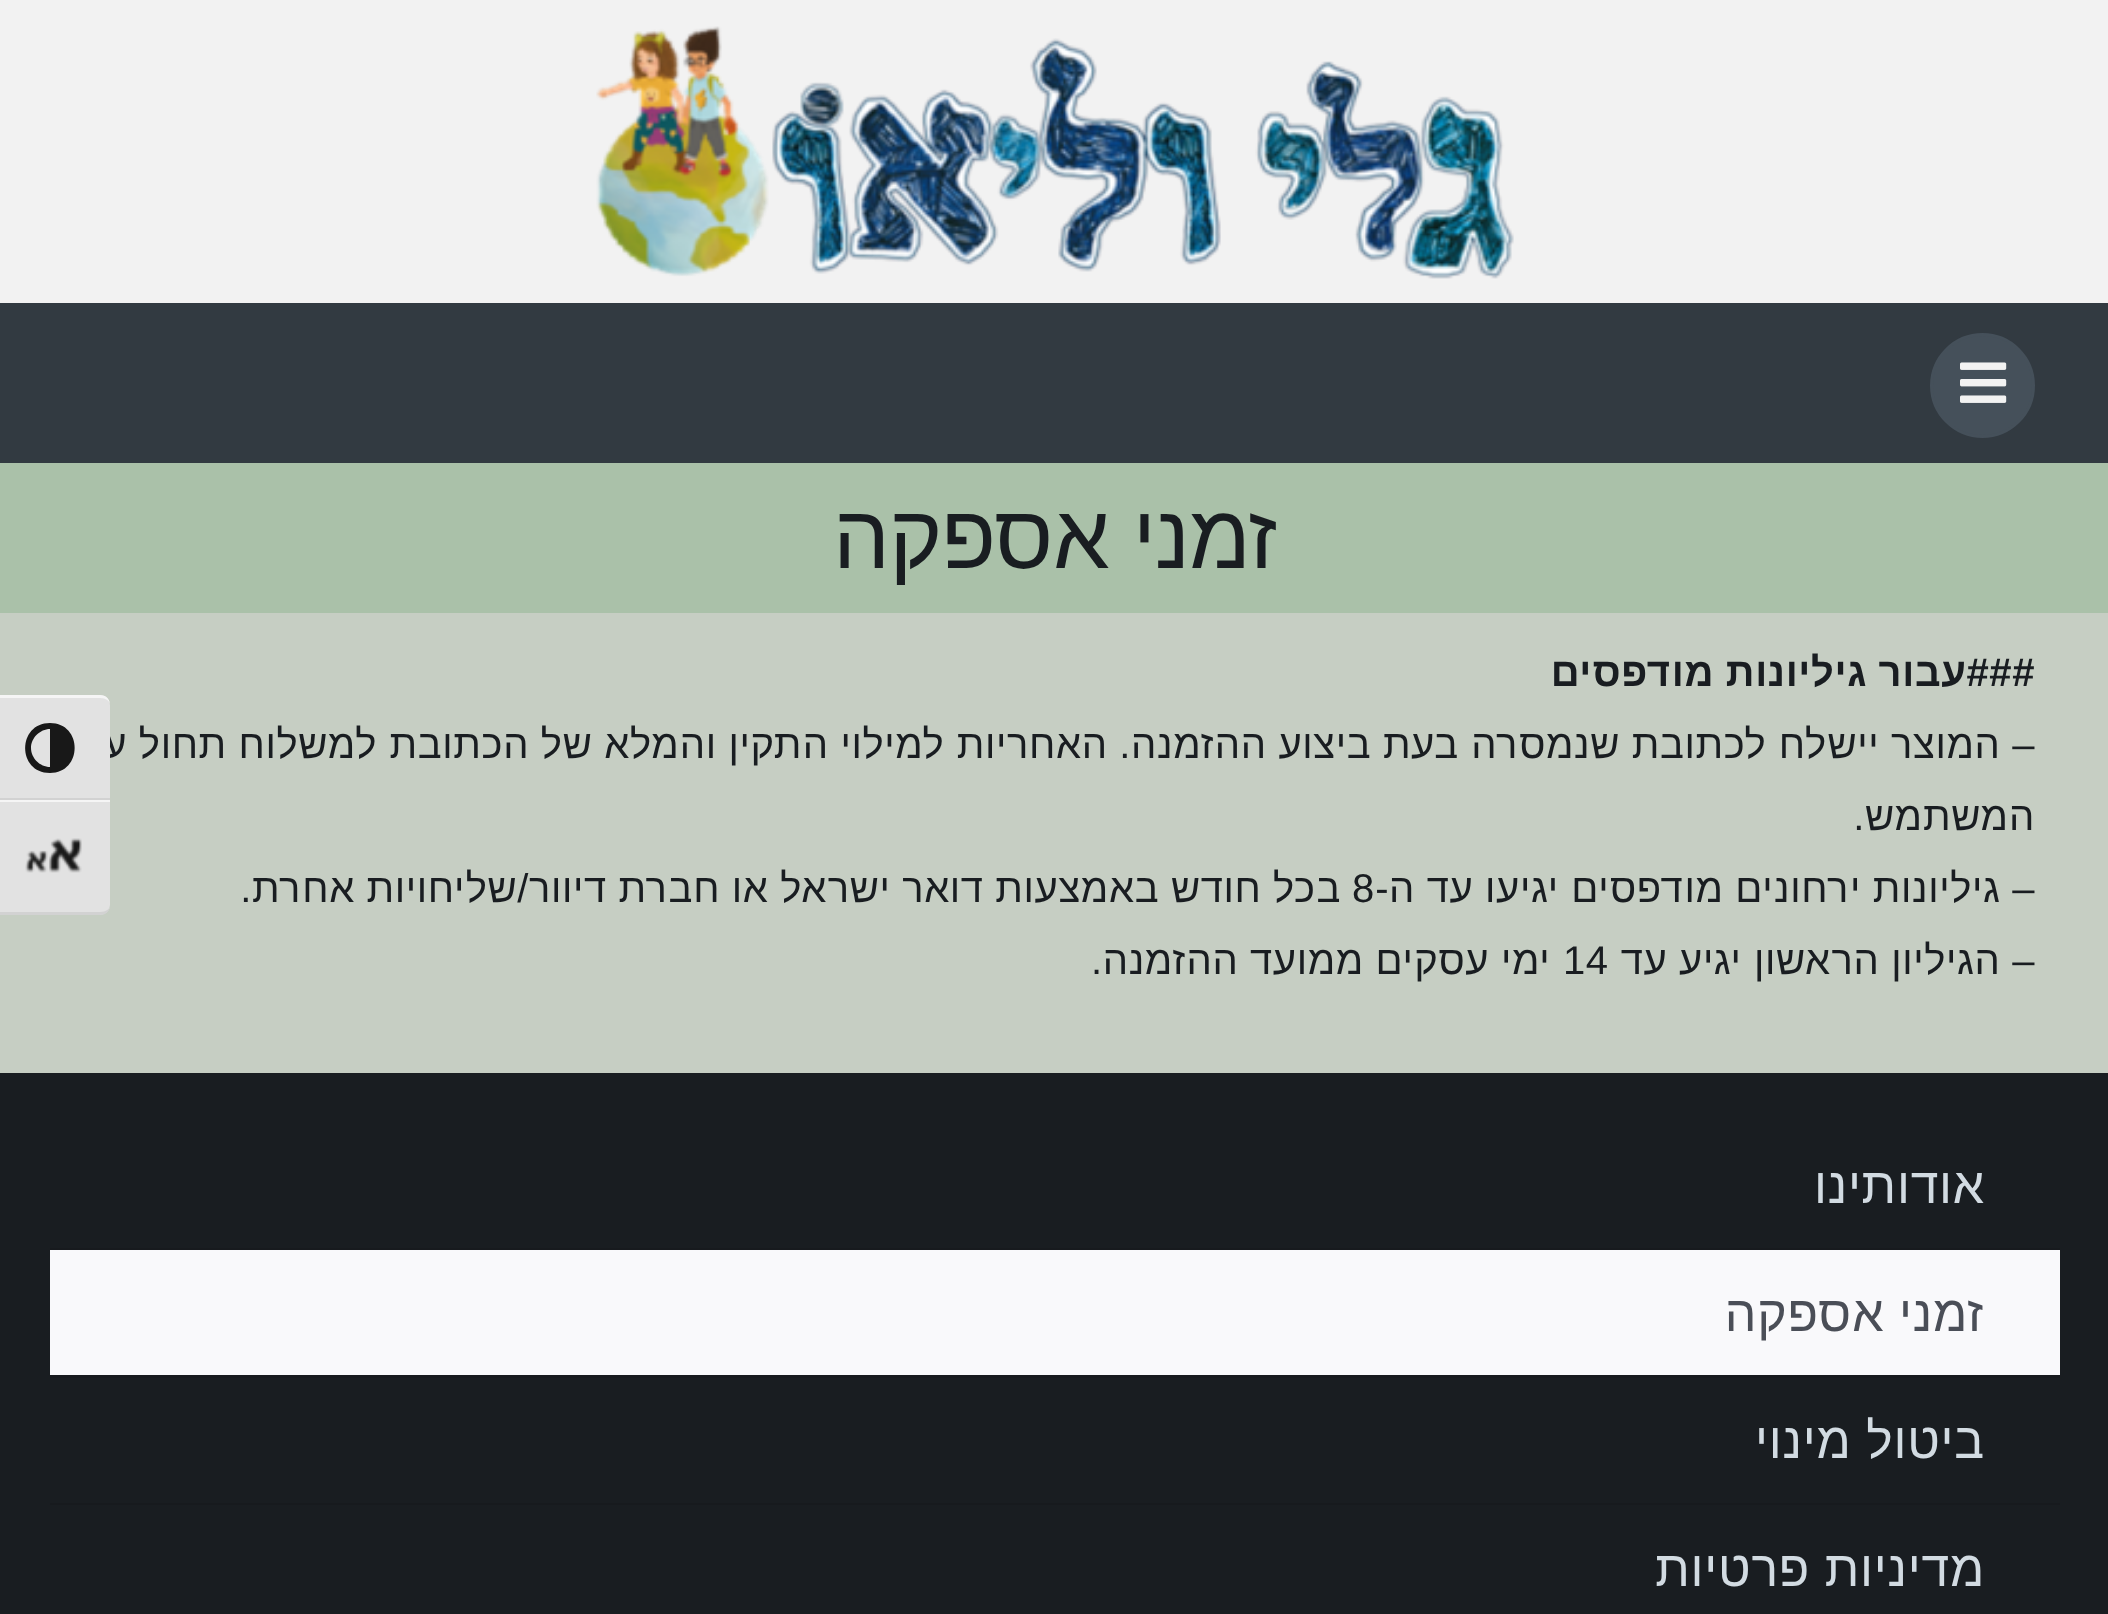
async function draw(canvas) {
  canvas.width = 2108
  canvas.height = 1614
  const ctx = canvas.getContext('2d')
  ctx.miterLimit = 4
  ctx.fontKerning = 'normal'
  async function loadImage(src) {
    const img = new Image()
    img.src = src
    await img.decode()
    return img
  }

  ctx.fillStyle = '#f2f2f2'
  ctx.fillRect(0, 0, 2108, 1614)
  ctx.drawImage(await loadImage('image0.png'), 596, 26, 918, 253)
  ctx.fillStyle = '#323a41'
  ctx.fillRect(0, 303, 2108, 160)
  ctx.fillStyle = '#45505a'
  ctx.beginPath()
  ctx.arc(1982.5, 385.5, 51, 0, 2 * Math.PI)
  ctx.fill()
  ctx.strokeStyle = '#45505a'
  ctx.lineWidth = 3
  ctx.stroke()
  ctx.drawImage(await loadImage('image1.png'), 1960, 362, 47, 41)
  ctx.fillStyle = '#aac1a9'
  ctx.fillRect(0, 463, 2108, 150)
  ctx.letterSpacing = '-1px'
  ctx.direction = 'rtl'
  ctx.font = '90px Arimo'
  ctx.fillStyle = '#191d21'
  ctx.fillText('זמני אספקה', 1278, 568)
  ctx.fillStyle = '#c6cec3'
  ctx.fillRect(0, 613, 2108, 460)
  ctx.letterSpacing = '0.6px'
  ctx.font = 'bold 40px Arimo'
  ctx.fillStyle = '#191d21'
  ctx.fillText('###עבור גיליונות מודפסים', 2035, 686)
  ctx.font = '40px Arimo'
  ctx.fillText('– המוצר יישלח לכתובת שנמסרה בעת ביצוע ההזמנה. האחריות למילוי התקין והמלא של הכתובת למשלוח תחול על', 2035, 758)
  ctx.fillText('המשתמש.', 2035, 830)
  ctx.fillText('– גיליונות ירחונים מודפסים יגיעו עד ה-', 2035, 902)
  ctx.direction = 'ltr'
  ctx.fillText('8', 1352, 902)
  ctx.direction = 'rtl'
  ctx.fillText('בכל חודש באמצעות דואר ישראל או חברת דיוור/שליחויות אחרת.', 1341, 902)
  ctx.fillText('– הגיליון הראשון יגיע עד', 2035, 974)
  ctx.direction = 'ltr'
  ctx.fillText('14', 1563, 974)
  ctx.direction = 'rtl'
  ctx.fillText('ימי עסקים ממועד ההזמנה.', 1551, 974)
  ctx.fillRect(0, 1073, 2108, 541)
  ctx.fillStyle = '#171a1e'
  ctx.fillRect(50, 1248, 2010, 2)
  ctx.letterSpacing = '0.75px'
  ctx.font = '50px Arimo'
  ctx.fillStyle = '#d2dbe2'
  ctx.fillText('אודותינו', 1985, 1203)
  ctx.fillStyle = '#171a1e'
  ctx.fillRect(50, 1375, 2010, 3)
  ctx.fillStyle = '#f9f9fb'
  ctx.fillRect(50, 1250, 2010, 125)
  ctx.fillStyle = '#4a4e57'
  ctx.fillText('זמני אספקה', 1985, 1331)
  ctx.fillStyle = '#171a1e'
  ctx.fillRect(50, 1503, 2010, 2)
  ctx.fillStyle = '#d2dbe2'
  ctx.fillText('ביטול מינוי', 1985, 1458)
  ctx.fillText('מדיניות פרטיות', 1985, 1586)
  ctx.fillStyle = '#e2e2e2'
  ctx.beginPath()
  ctx.roundRect(0, 695, 110, 105, [0, 10, 0, 0])
  ctx.fill()
  ctx.fillStyle = '#f5f5f5'
  ctx.beginPath()
  ctx.moveTo(0, 695)
  ctx.lineTo(0, 698)
  ctx.lineTo(100, 698)
  ctx.bezierCurveTo(106, 698, 110, 701, 110, 705)
  ctx.bezierCurveTo(110, 699, 106, 695, 100, 695)
  ctx.closePath()
  ctx.fill()
  ctx.fillStyle = '#d2d2d2'
  ctx.fillRect(0, 798, 110, 2)
  ctx.fillStyle = '#181818'
  ctx.beginPath()
  ctx.moveTo(50, 723)
  ctx.bezierCurveTo(17, 723, 17, 773, 50, 773)
  ctx.bezierCurveTo(83, 773, 83, 723, 50, 723)
  ctx.closePath()
  ctx.moveTo(31, 748)
  ctx.bezierCurveTo(31, 738, 40, 729, 50, 729)
  ctx.lineTo(50, 767)
  ctx.bezierCurveTo(40, 767, 31, 758, 31, 748)
  ctx.closePath()
  ctx.fill()
  ctx.fillStyle = '#e2e2e2'
  ctx.beginPath()
  ctx.roundRect(0, 800, 110, 115, [0, 0, 10, 0])
  ctx.fill()
  ctx.fillStyle = '#f5f5f5'
  ctx.fillRect(0, 800, 110, 2)
  ctx.fillStyle = '#d2d2d2'
  ctx.beginPath()
  ctx.moveTo(0, 912)
  ctx.lineTo(0, 915)
  ctx.lineTo(100, 915)
  ctx.bezierCurveTo(106, 915, 110, 911, 110, 905)
  ctx.bezierCurveTo(110, 909, 106, 912, 100, 912)
  ctx.closePath()
  ctx.fill()
  ctx.drawImage(await loadImage('image2.png'), 25, 838, 57, 35)
}

draw(document.querySelector('canvas'))
